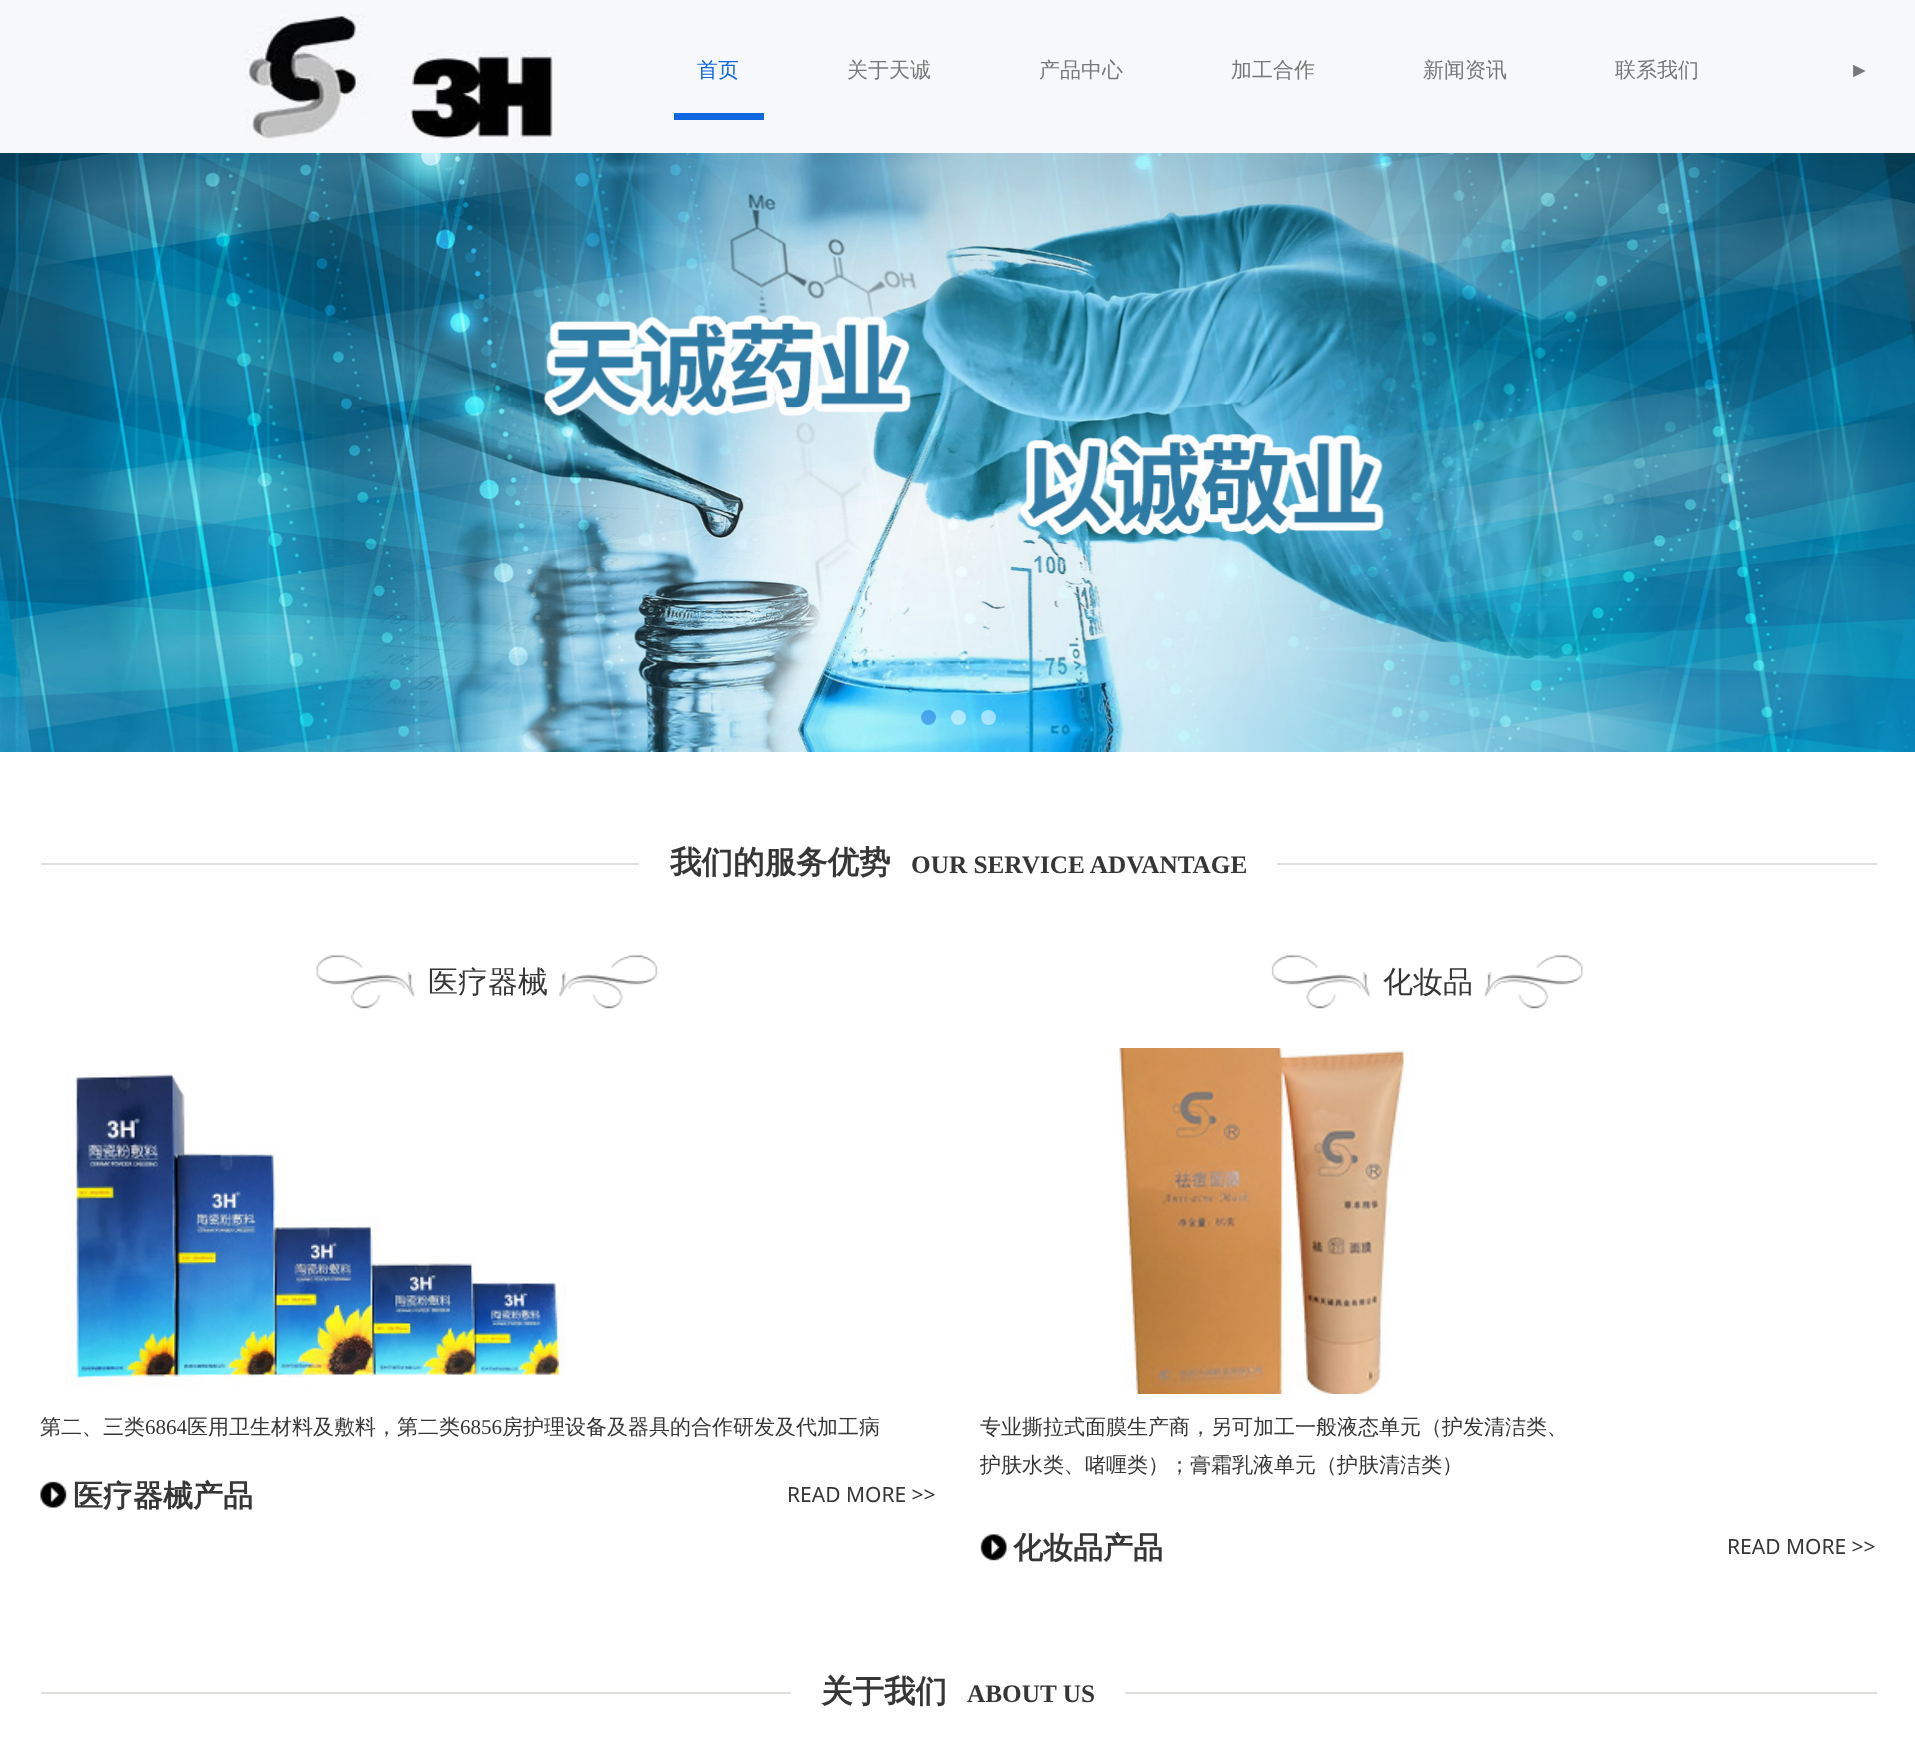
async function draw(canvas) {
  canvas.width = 1915
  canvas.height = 1752
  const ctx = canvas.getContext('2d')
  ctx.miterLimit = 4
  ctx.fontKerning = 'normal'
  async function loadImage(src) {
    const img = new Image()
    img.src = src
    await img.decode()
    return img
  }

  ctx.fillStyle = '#fff'
  ctx.fillRect(0, 0, 1915, 1752)
  ctx.fillStyle = '#f6f8f9'
  ctx.fillRect(0, 0, 1915, 153)
  ctx.drawImage(await loadImage('image0.png'), 245, 14, 311, 127)
  ctx.font = '500 21px WenQuanYi Zen Hei'
  ctx.fillStyle = '#0f68e1'
  ctx.fillText('首页', 697, 77)
  ctx.fillRect(674, 113, 90, 7)
  ctx.fillStyle = '#787878'
  ctx.fillText('关于天诚', 847, 77)
  ctx.fillText('产品中心', 1039, 77)
  ctx.fillText('加工合作', 1231, 77)
  ctx.fillText('新闻资讯', 1423, 77)
  ctx.fillText('联系我们', 1615, 77)
  ctx.font = '21px Liberation Serif'
  ctx.fillText('►', 1849, 77)
  ctx.drawImage(await loadImage('image1.png'), 0, 153, 1915, 599)
  ctx.fillStyle = '#0f68e180'
  ctx.beginPath()
  ctx.arc(928.5, 717.5, 7.5, 0, 2 * Math.PI)
  ctx.fill()
  ctx.fillStyle = '#ffffff80'
  ctx.beginPath()
  ctx.arc(958.5, 717.5, 7.5, 0, 2 * Math.PI)
  ctx.fill()
  ctx.beginPath()
  ctx.arc(988.5, 717.5, 7.5, 0, 2 * Math.PI)
  ctx.fill()
  ctx.fillStyle = '#e0dddb'
  ctx.fillRect(41, 863, 598, 2)
  ctx.font = 'bold 31.5px WenQuanYi Zen Hei'
  ctx.fillStyle = '#363636'
  ctx.fillText('我们的服务优势', 670, 873)
  ctx.font = 'bold 25.25px Liberation Serif'
  ctx.fillText('OUR SERVICE ADVANTAGE', 911, 873)
  ctx.fillStyle = '#e0dddb'
  ctx.fillRect(1277, 863, 600, 2)
  ctx.drawImage(await loadImage('image2.png'), 316, 955, 99, 54)
  ctx.drawImage(await loadImage('image3.png'), 559, 955, 99, 54)
  ctx.font = '500 30px WenQuanYi Zen Hei'
  ctx.fillStyle = '#363636'
  ctx.fillText('医疗器械', 428, 992)
  ctx.drawImage(await loadImage('image4.png'), 65, 1071, 502, 317)
  ctx.font = '500 21px WenQuanYi Zen Hei'
  ctx.fillText('第二、三类', 40, 1434)
  ctx.font = '21px Liberation Serif'
  ctx.fillText('6864', 145, 1434)
  ctx.font = '500 21px WenQuanYi Zen Hei'
  ctx.fillText('医用卫生材料及敷料，第二类', 187, 1434)
  ctx.font = '21px Liberation Serif'
  ctx.fillText('6856', 460, 1434)
  ctx.font = '500 21px WenQuanYi Zen Hei'
  ctx.fillText('房护理设备及器具的合作研发及代加工病', 502, 1434)
  ctx.drawImage(await loadImage('image5.png'), 40, 1481, 27, 27)
  ctx.font = 'bold 30px WenQuanYi Zen Hei'
  ctx.fillText('医疗器械产品', 73, 1506)
  ctx.font = '21px Noto Sans'
  ctx.fillText('READ MORE >>', 787, 1502)
  ctx.drawImage(await loadImage('image6.png'), 1271, 955, 99, 54)
  ctx.drawImage(await loadImage('image7.png'), 1484, 955, 99, 54)
  ctx.font = '500 30px WenQuanYi Zen Hei'
  ctx.fillText('化妆品', 1383, 992)
  ctx.drawImage(await loadImage('image8.png'), 1112, 1048, 303, 346)
  ctx.font = '500 21px WenQuanYi Zen Hei'
  ctx.fillText('专业撕拉式面膜生产商，另可加工一般液态单元（护发清洁类、', 980, 1434)
  ctx.fillText('护肤水类、啫喱类）；膏霜乳液单元（护肤清洁类）', 980, 1472)
  ctx.drawImage(await loadImage('image9.png'), 980, 1534, 27, 27)
  ctx.font = 'bold 30px WenQuanYi Zen Hei'
  ctx.fillText('化妆品产品', 1013, 1558)
  ctx.font = '21px Noto Sans'
  ctx.fillText('READ MORE >>', 1727, 1554)
  ctx.fillStyle = '#e0dddb'
  ctx.fillRect(41, 1692, 750, 2)
  ctx.font = 'bold 31.5px WenQuanYi Zen Hei'
  ctx.fillStyle = '#363636'
  ctx.fillText('关于我们', 821, 1702)
  ctx.font = 'bold 25.25px Liberation Serif'
  ctx.fillText('ABOUT US', 967, 1702)
  ctx.fillStyle = '#e0dddb'
  ctx.fillRect(1125, 1692, 752, 2)
}

draw(document.querySelector('canvas'))
